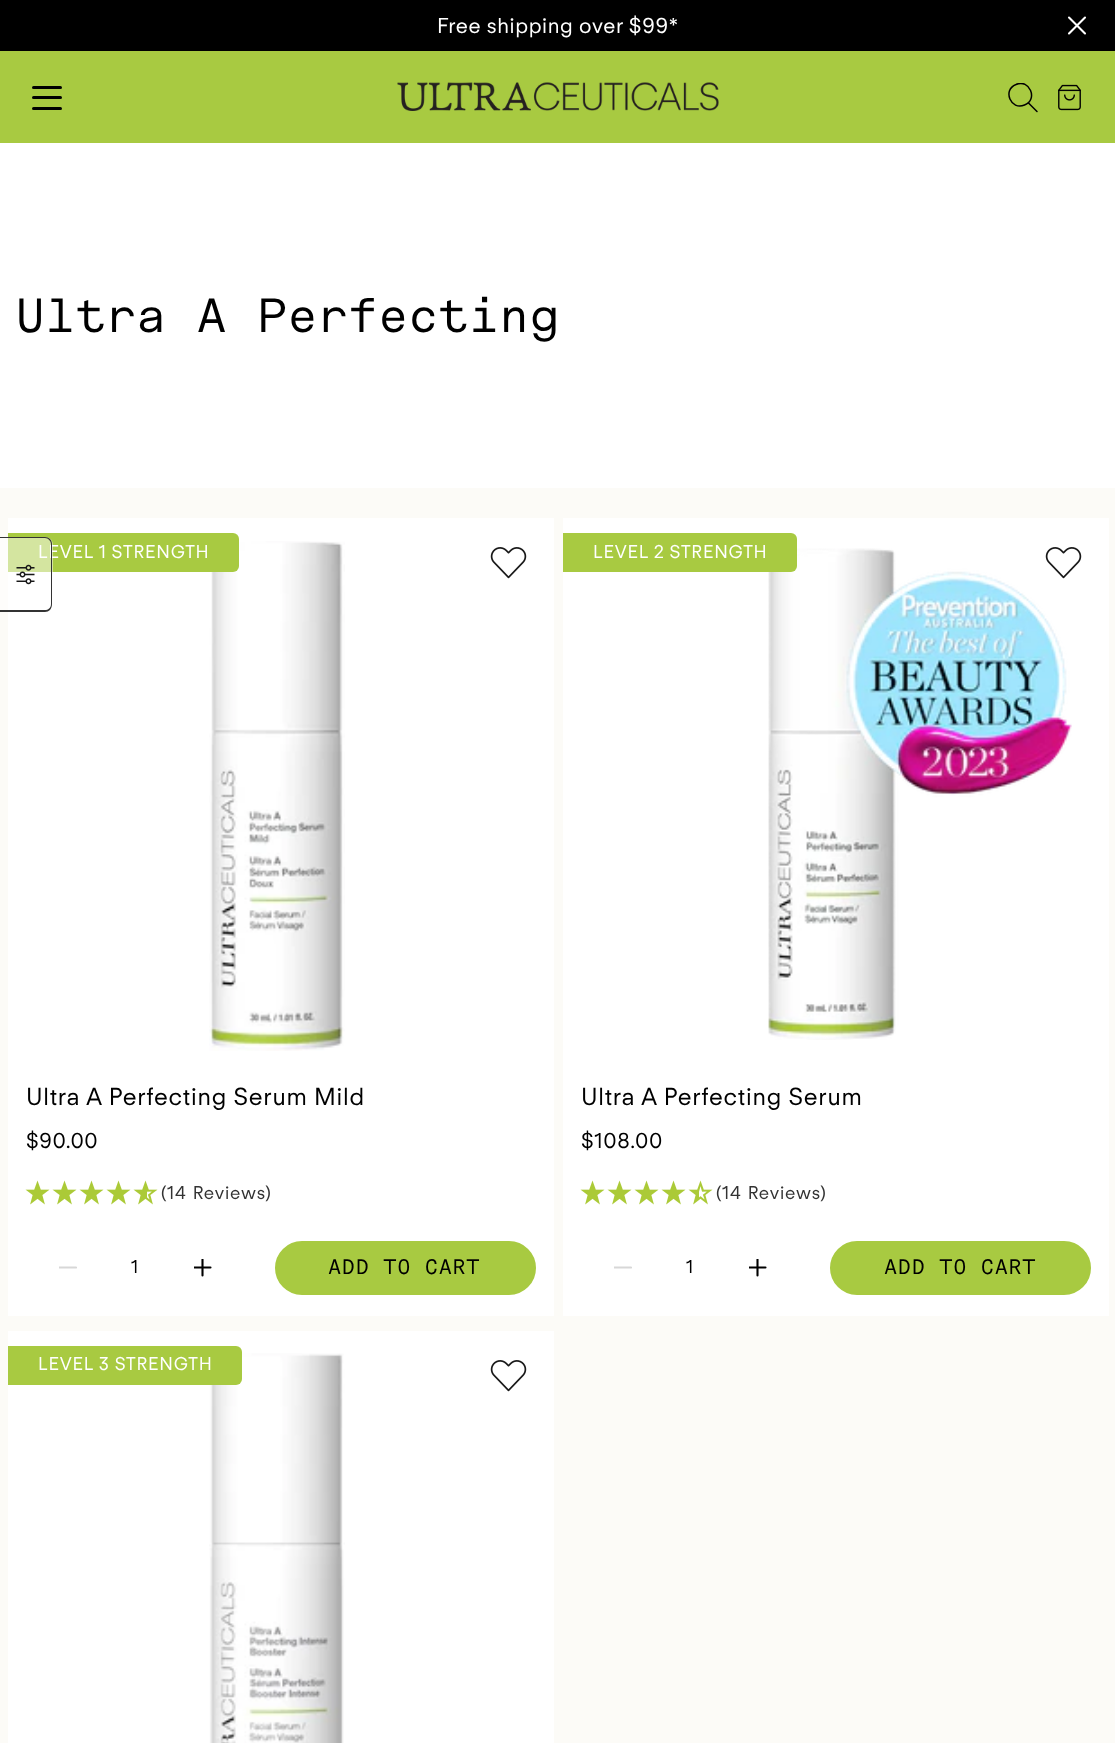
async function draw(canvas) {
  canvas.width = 1115
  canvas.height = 1743
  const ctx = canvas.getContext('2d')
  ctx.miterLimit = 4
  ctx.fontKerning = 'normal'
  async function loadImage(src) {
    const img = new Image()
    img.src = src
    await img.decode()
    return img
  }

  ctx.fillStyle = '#fcfbf7'
  ctx.fillRect(0, 0, 1115, 1743)
  ctx.fillStyle = '#000'
  ctx.fillRect(0, 0, 1115, 51)
  ctx.letterSpacing = '0.6px'
  ctx.font = '21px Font'
  ctx.fillStyle = '#fff'
  ctx.fillText('Free shipping over $99*', 437, 33)
  ctx.beginPath()
  ctx.moveTo(1069, 33.5)
  ctx.lineTo(1085, 17.5)
  ctx.moveTo(1085, 33.5)
  ctx.lineTo(1069, 17.5)
  ctx.strokeStyle = '#fff'
  ctx.lineWidth = 2.1
  ctx.lineCap = 'round'
  ctx.lineJoin = 'round'
  ctx.stroke()
  ctx.fillStyle = '#a8ca41'
  ctx.fillRect(0, 51, 1115, 92)
  ctx.fillStyle = '#000'
  ctx.beginPath()
  ctx.roundRect(32, 86, 30, 3, 1.5)
  ctx.fill()
  ctx.beginPath()
  ctx.roundRect(32, 96, 30, 3, 1.5)
  ctx.fill()
  ctx.beginPath()
  ctx.roundRect(32, 107, 30, 3, 1.5)
  ctx.fill()
  ctx.drawImage(await loadImage('image0.png'), 397, 82, 322, 29)
  ctx.save()
  ctx.beginPath()
  ctx.rect(1008, 83, 30, 30)
  ctx.clip()
  ctx.beginPath()
  ctx.moveTo(1024.5, 105)
  ctx.bezierCurveTo(1038.5, 99.5, 1029.5, 78.5, 1016, 84.5)
  ctx.bezierCurveTo(1002, 90, 1011, 111, 1024.5, 105)
  ctx.closePath()
  ctx.strokeStyle = '#000'
  ctx.lineWidth = 1.5
  ctx.stroke()
  ctx.restore()
  ctx.beginPath()
  ctx.moveTo(1028.5, 103)
  ctx.lineTo(1037, 111.5)
  ctx.strokeStyle = '#000'
  ctx.lineWidth = 1.5
  ctx.stroke()
  ctx.drawImage(await loadImage('image1.png'), 1058, 84, 23, 27)
  ctx.fillStyle = '#fff'
  ctx.fillRect(0, 143, 1115, 345)
  ctx.letterSpacing = '0px'
  ctx.font = '48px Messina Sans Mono'
  ctx.fillStyle = '#000'
  ctx.fillText('Ultra A Perfecting', 15, 332)
  ctx.fillStyle = '#fff'
  ctx.fillRect(8, 518, 546, 798)
  ctx.drawImage(await loadImage('image3.png'), 209, 541, 136, 510)
  ctx.fillStyle = '#a8ca41'
  ctx.beginPath()
  ctx.roundRect(8, 533, 231, 39, [0, 6, 6, 0])
  ctx.fill()
  ctx.letterSpacing = '0.75px'
  ctx.font = '18px Font'
  ctx.fillStyle = '#fff'
  ctx.fillText('LEVEL 1 STRENGTH', 38, 558)
  ctx.fillStyle = '#ffffff80'
  ctx.beginPath()
  ctx.roundRect(0, 537, 53, 75, [0, 8, 8, 0])
  ctx.fill()
  ctx.fillStyle = '#333'
  ctx.beginPath()
  ctx.moveTo(0, 537)
  ctx.lineTo(45, 537)
  ctx.bezierCurveTo(49, 537, 52, 540, 52, 544)
  ctx.lineTo(52, 604)
  ctx.bezierCurveTo(52, 609, 49, 612, 45, 612)
  ctx.lineTo(0, 612)
  ctx.closePath()
  ctx.moveTo(0, 538)
  ctx.lineTo(45, 538)
  ctx.bezierCurveTo(48, 538, 51, 541, 51, 544)
  ctx.lineTo(51, 604)
  ctx.bezierCurveTo(51, 608, 48, 610, 45, 610)
  ctx.lineTo(0, 610)
  ctx.closePath()
  ctx.fill('evenodd')
  ctx.drawImage(await loadImage('image2.png'), 16, 564, 19, 21)
  ctx.drawImage(await loadImage('image4.png'), 490, 547, 37, 32)
  ctx.font = '24px Font'
  ctx.fillStyle = '#000'
  ctx.fillText('Ultra A Perfecting Serum Mild', 26, 1105)
  ctx.letterSpacing = '0.6px'
  ctx.font = '21px Font'
  ctx.fillText('$90.00', 26, 1148)
  ctx.drawImage(await loadImage('image5.png'), 25, 1180, 25, 25)
  ctx.drawImage(await loadImage('image5.png'), 52, 1180, 25, 25)
  ctx.drawImage(await loadImage('image5.png'), 79, 1180, 25, 25)
  ctx.drawImage(await loadImage('image5.png'), 106, 1180, 25, 25)
  ctx.drawImage(await loadImage('image6.png'), 133, 1180, 25, 25)
  ctx.letterSpacing = '0.75px'
  ctx.wordSpacing = '1px'
  ctx.font = '18px Font'
  ctx.fillStyle = '#333'
  ctx.fillText('(14 Reviews)', 161, 1199)
  ctx.save()
  ctx.beginPath()
  ctx.rect(59, 1259, 18, 18)
  ctx.clip()
  ctx.beginPath()
  ctx.moveTo(59, 1267.5)
  ctx.lineTo(76, 1267.5)
  ctx.strokeStyle = '#d7d7d7'
  ctx.lineWidth = 2.2
  ctx.stroke()
  ctx.restore()
  ctx.letterSpacing = '1px'
  ctx.wordSpacing = '0px'
  ctx.fillStyle = '#000'
  ctx.fillText('1', 131, 1273)
  ctx.save()
  ctx.beginPath()
  ctx.rect(194, 1259, 18, 18)
  ctx.clip()
  ctx.beginPath()
  ctx.moveTo(194.5, 1267.5)
  ctx.lineTo(210.5, 1267.5)
  ctx.moveTo(202.5, 1259.5)
  ctx.lineTo(202.5, 1275.5)
  ctx.lineWidth = 2.1
  ctx.stroke()
  ctx.restore()
  ctx.fillStyle = '#a8ca41'
  ctx.beginPath()
  ctx.roundRect(276, 1242, 259, 52, 26)
  ctx.fill()
  ctx.strokeStyle = '#a8ca41'
  ctx.lineWidth = 2
  ctx.lineJoin = 'miter'
  ctx.stroke()
  ctx.letterSpacing = '0.6px'
  ctx.font = '21px Messina Sans Mono'
  ctx.fillStyle = '#000'
  ctx.fillText('ADD TO CART', 328, 1274)
  ctx.fillStyle = '#fff'
  ctx.fillRect(563, 518, 546, 798)
  ctx.drawImage(await loadImage('image7.png'), 768, 548, 304, 492)
  ctx.fillStyle = '#a8ca41'
  ctx.beginPath()
  ctx.roundRect(563, 533, 234, 39, [0, 6, 6, 0])
  ctx.fill()
  ctx.letterSpacing = '0.75px'
  ctx.font = '18px Font'
  ctx.fillStyle = '#fff'
  ctx.fillText('LEVEL 2 STRENGTH', 593, 558)
  ctx.drawImage(await loadImage('image4.png'), 1045, 547, 37, 32)
  ctx.font = '24px Font'
  ctx.fillStyle = '#000'
  ctx.fillText('Ultra A Perfecting Serum', 581, 1105)
  ctx.letterSpacing = '0.6px'
  ctx.font = '21px Font'
  ctx.fillText('$108.00', 581, 1148)
  ctx.drawImage(await loadImage('image5.png'), 580, 1180, 25, 25)
  ctx.drawImage(await loadImage('image5.png'), 607, 1180, 25, 25)
  ctx.drawImage(await loadImage('image5.png'), 634, 1180, 25, 25)
  ctx.drawImage(await loadImage('image5.png'), 661, 1180, 25, 25)
  ctx.drawImage(await loadImage('image8.png'), 688, 1180, 25, 25)
  ctx.letterSpacing = '0.75px'
  ctx.wordSpacing = '1px'
  ctx.font = '18px Font'
  ctx.fillStyle = '#333'
  ctx.fillText('(14 Reviews)', 716, 1199)
  ctx.save()
  ctx.beginPath()
  ctx.rect(614, 1259, 18, 18)
  ctx.clip()
  ctx.beginPath()
  ctx.moveTo(614, 1267.5)
  ctx.lineTo(631, 1267.5)
  ctx.strokeStyle = '#d7d7d7'
  ctx.lineWidth = 2.2
  ctx.lineJoin = 'round'
  ctx.stroke()
  ctx.restore()
  ctx.letterSpacing = '1px'
  ctx.wordSpacing = '0px'
  ctx.fillStyle = '#000'
  ctx.fillText('1', 686, 1273)
  ctx.save()
  ctx.beginPath()
  ctx.rect(749, 1259, 18, 18)
  ctx.clip()
  ctx.beginPath()
  ctx.moveTo(749.5, 1267.5)
  ctx.lineTo(765.5, 1267.5)
  ctx.moveTo(757.5, 1259.5)
  ctx.lineTo(757.5, 1275.5)
  ctx.strokeStyle = '#000'
  ctx.lineWidth = 2.1
  ctx.lineJoin = 'round'
  ctx.stroke()
  ctx.restore()
  ctx.fillStyle = '#a8ca41'
  ctx.beginPath()
  ctx.roundRect(831, 1242, 259, 52, 26)
  ctx.fill()
  ctx.stroke()
  ctx.letterSpacing = '0.6px'
  ctx.font = '21px Messina Sans Mono'
  ctx.fillStyle = '#000'
  ctx.fillText('ADD TO CART', 884, 1274)
  ctx.fillStyle = '#fff'
  ctx.fillRect(8, 1331, 546, 412)
  ctx.drawImage(await loadImage('image9.png'), 209, 1353, 136, 390)
  ctx.fillStyle = '#a8ca41'
  ctx.beginPath()
  ctx.roundRect(8, 1346, 234, 39, [0, 6, 6, 0])
  ctx.fill()
  ctx.letterSpacing = '0.75px'
  ctx.font = '18px Font'
  ctx.fillStyle = '#fff'
  ctx.fillText('LEVEL 3 STRENGTH', 38, 1370)
  ctx.drawImage(await loadImage('image4.png'), 490, 1360, 37, 32)
}

draw(document.querySelector('canvas'))
